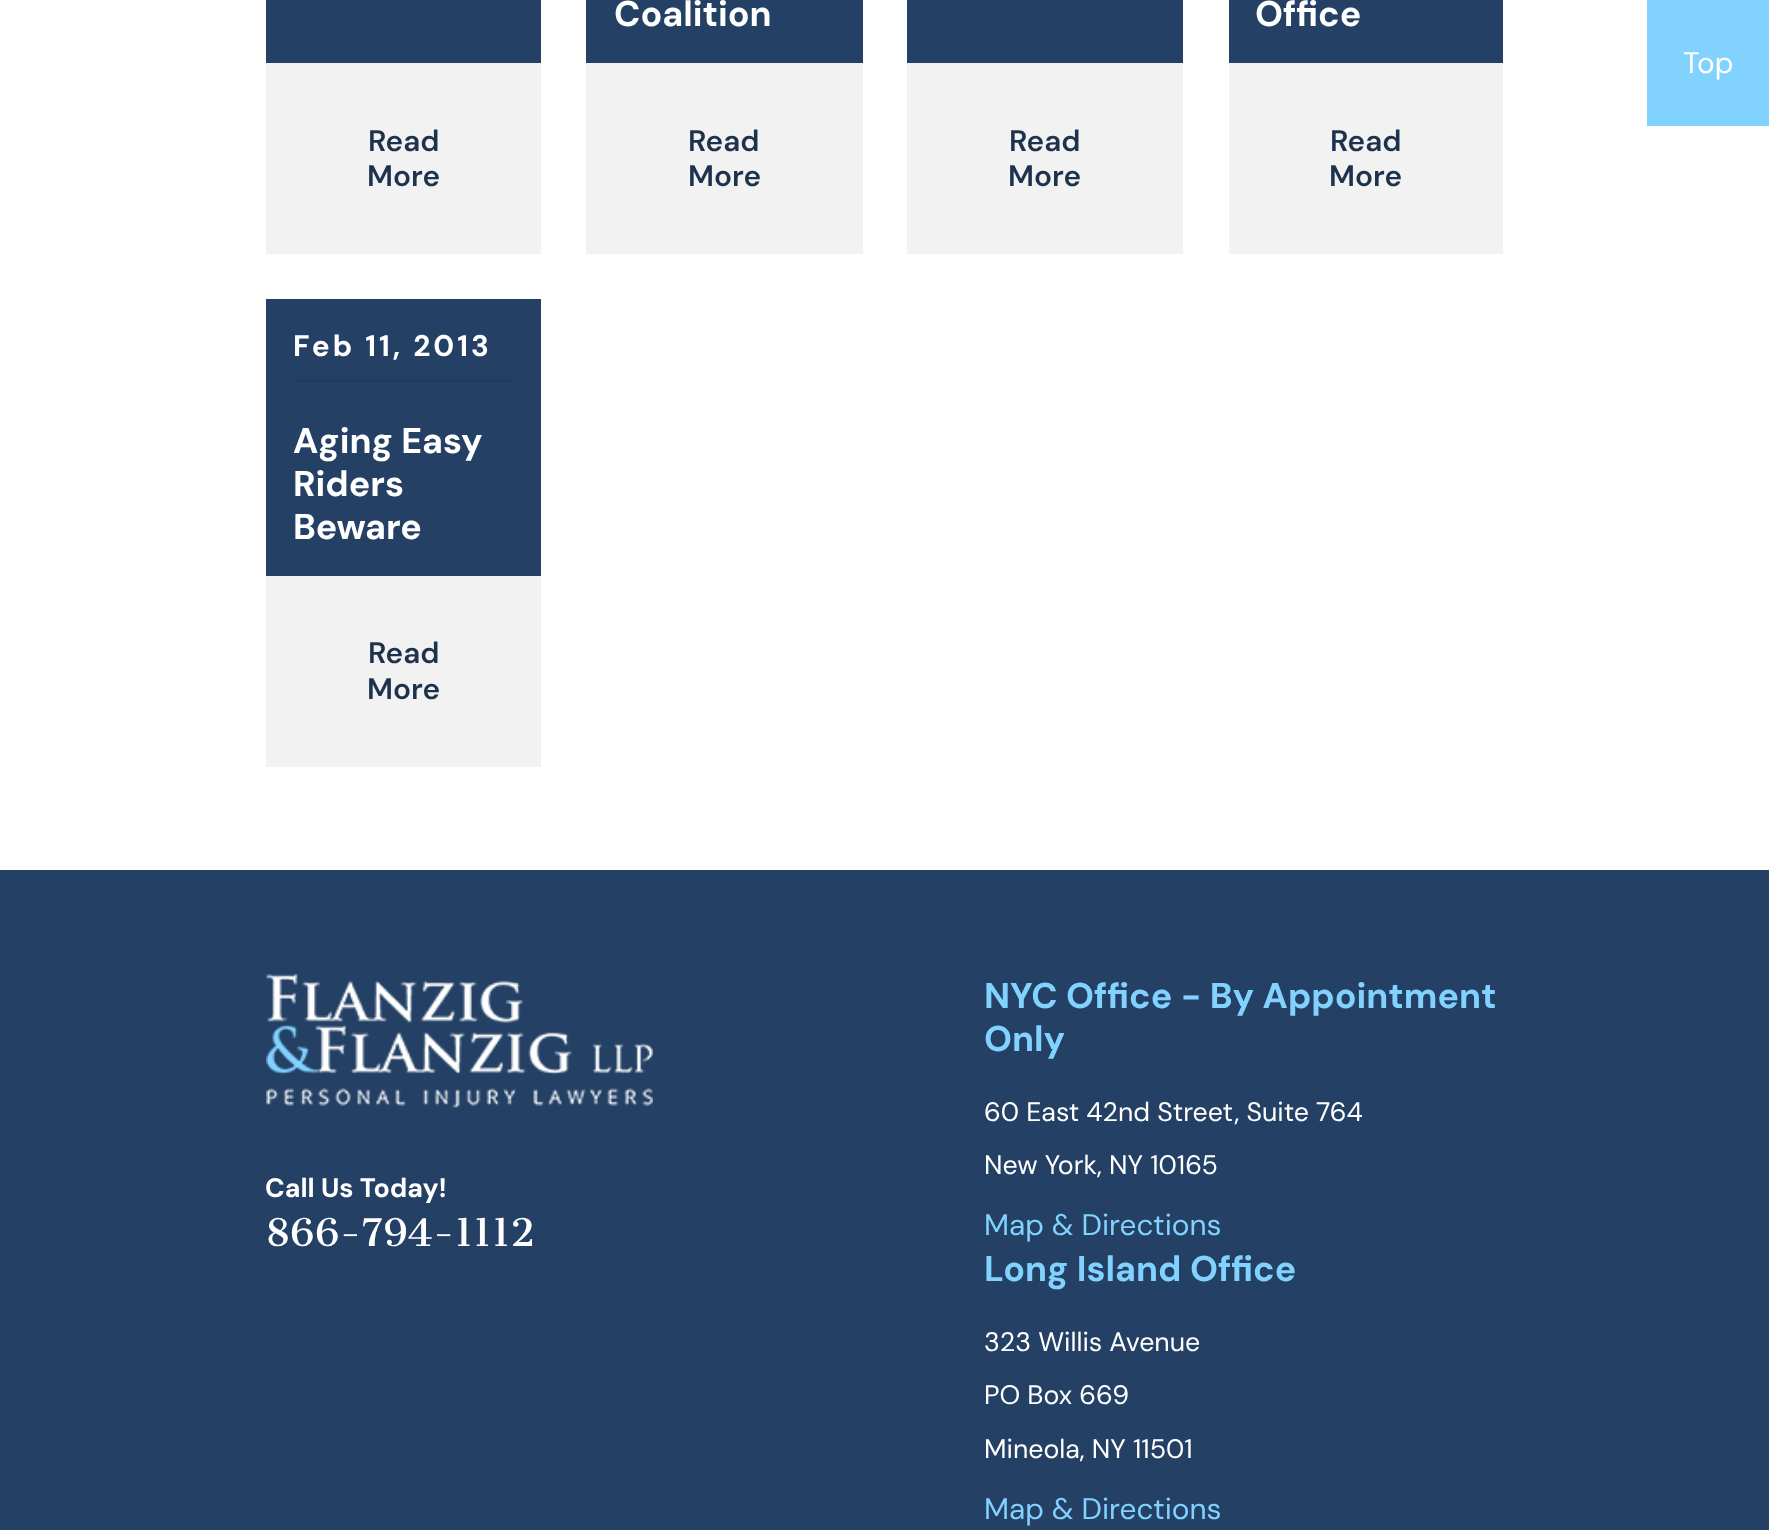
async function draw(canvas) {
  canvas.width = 1769
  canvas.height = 1530
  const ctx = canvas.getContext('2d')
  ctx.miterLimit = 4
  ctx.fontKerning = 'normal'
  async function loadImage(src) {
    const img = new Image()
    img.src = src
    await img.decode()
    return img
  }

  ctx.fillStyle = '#fff'
  ctx.fillRect(0, 0, 1769, 1530)
  ctx.fillStyle = '#244165'
  ctx.fillRect(266, 0, 275, 63)
  ctx.fillStyle = '#f2f2f2'
  ctx.fillRect(266, 63, 275, 191)
  ctx.font = '600 29.75px DM Sans'
  ctx.fillStyle = '#1d324c'
  ctx.fillText('Read', 368, 151)
  ctx.fillText('More', 367, 186)
  ctx.fillStyle = '#244165'
  ctx.fillRect(586, 0, 277, 63)
  ctx.font = 'bold 35.75px DM Sans'
  ctx.fillStyle = '#fff'
  ctx.fillText('Coalition', 614, 26)
  ctx.fillStyle = '#f2f2f2'
  ctx.fillRect(586, 63, 277, 191)
  ctx.font = '600 29.75px DM Sans'
  ctx.fillStyle = '#1d324c'
  ctx.fillText('Read', 688, 151)
  ctx.fillText('More', 688, 186)
  ctx.fillStyle = '#244165'
  ctx.fillRect(907, 0, 276, 63)
  ctx.fillStyle = '#f2f2f2'
  ctx.fillRect(907, 63, 276, 191)
  ctx.fillStyle = '#1d324c'
  ctx.fillText('Read', 1009, 151)
  ctx.fillText('More', 1008, 186)
  ctx.fillStyle = '#244165'
  ctx.fillRect(1229, 0, 274, 63)
  ctx.font = 'bold 35.75px DM Sans'
  ctx.fillStyle = '#fff'
  ctx.fillText('Office', 1255, 26)
  ctx.fillStyle = '#f2f2f2'
  ctx.fillRect(1229, 63, 274, 191)
  ctx.font = '600 29.75px DM Sans'
  ctx.fillStyle = '#1d324c'
  ctx.fillText('Read', 1330, 151)
  ctx.fillText('More', 1329, 186)
  ctx.fillStyle = '#244165'
  ctx.fillRect(266, 299, 275, 277)
  ctx.fillStyle = '#203b5b'
  ctx.fillRect(292, 380, 223, 2)
  ctx.letterSpacing = '3px'
  ctx.font = 'bold 29.75px DM Sans'
  ctx.fillStyle = '#fff'
  ctx.fillText('Feb 11, 2013', 293, 356)
  ctx.letterSpacing = '0px'
  ctx.font = 'bold 35.75px DM Sans'
  ctx.fillText('Aging Easy', 293, 453)
  ctx.fillText('Riders', 293, 496)
  ctx.fillText('Beware', 293, 539)
  ctx.fillStyle = '#f2f2f2'
  ctx.fillRect(266, 576, 275, 191)
  ctx.font = '600 29.75px DM Sans'
  ctx.fillStyle = '#1d324c'
  ctx.fillText('Read', 368, 663)
  ctx.fillText('More', 367, 699)
  ctx.fillStyle = '#82d2ff'
  ctx.fillRect(1647, 0, 122, 126)
  ctx.font = '29.75px DM Sans'
  ctx.fillStyle = '#fff'
  ctx.fillText('Top', 1683, 73)
  ctx.fillStyle = '#244165'
  ctx.fillRect(0, 870, 1769, 660)
  ctx.drawImage(await loadImage('image0.png'), 266, 974, 387, 134)
  ctx.font = 'bold 26.75px DM Sans'
  ctx.fillStyle = '#fff'
  ctx.fillText('Call Us Today!', 265, 1197)
  ctx.font = '37.25px Cantata One'
  ctx.fillText('866-794-1112', 265, 1246)
  ctx.font = 'bold 35.75px DM Sans'
  ctx.fillStyle = '#82d2ff'
  ctx.fillText('NYC Office - By Appointment', 984, 1008)
  ctx.fillText('Only', 984, 1051)
  ctx.font = '26.75px DM Sans'
  ctx.fillStyle = '#fff'
  ctx.fillText('60 East 42nd Street, Suite 764', 984, 1121)
  ctx.fillText('New York, NY 10165', 984, 1174)
  ctx.font = '29.75px DM Sans'
  ctx.fillStyle = '#82d2ff'
  ctx.fillText('Map & Directions', 984, 1235)
  ctx.font = 'bold 35.75px DM Sans'
  ctx.fillText('Long Island Office', 984, 1281)
  ctx.font = '26.75px DM Sans'
  ctx.fillStyle = '#fff'
  ctx.fillText('323 Willis Avenue', 984, 1351)
  ctx.fillText('PO Box 669', 984, 1404)
  ctx.fillText('Mineola, NY 11501', 984, 1458)
  ctx.font = '29.75px DM Sans'
  ctx.fillStyle = '#82d2ff'
  ctx.fillText('Map & Directions', 984, 1519)
}

draw(document.querySelector('canvas'))
